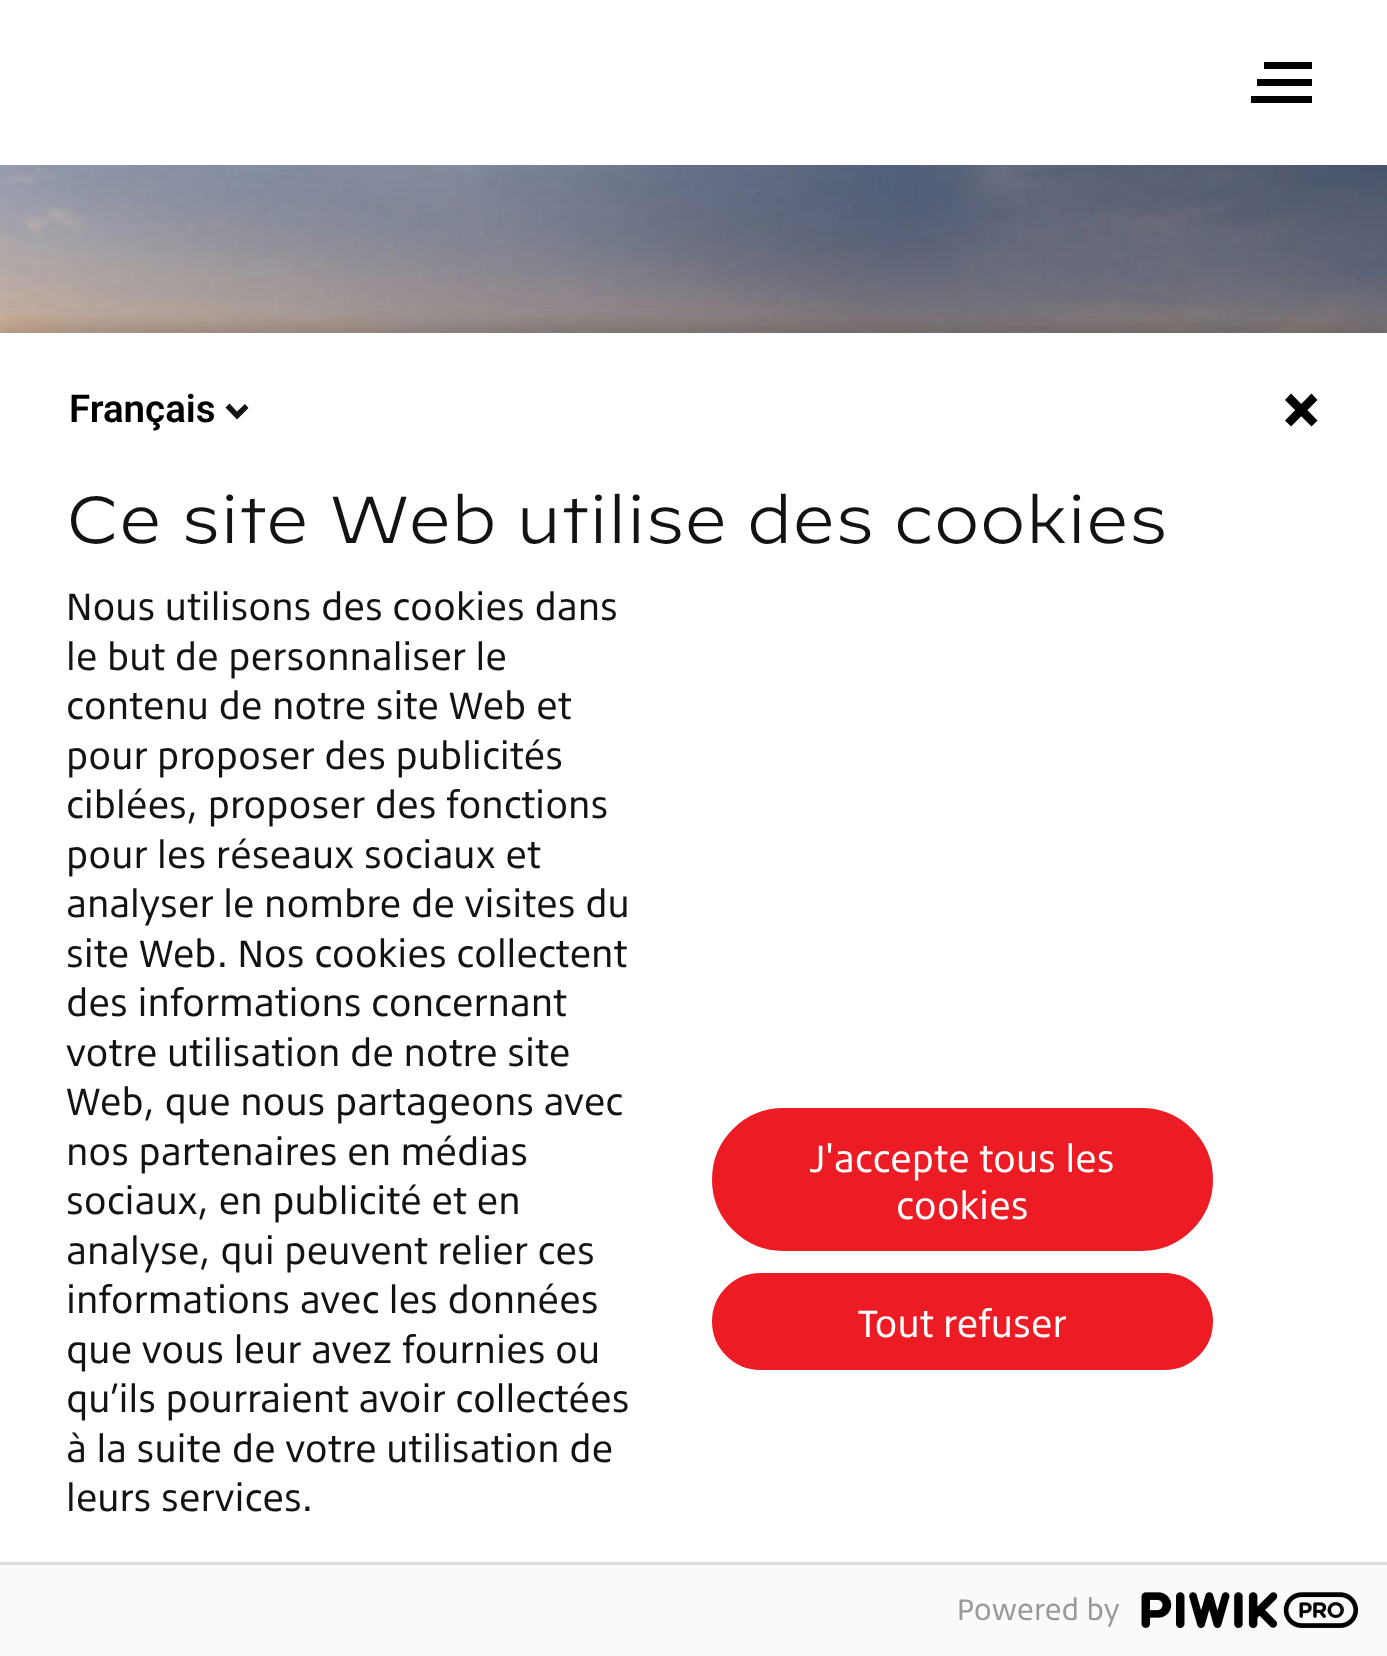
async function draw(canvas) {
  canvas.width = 1387
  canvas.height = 1656
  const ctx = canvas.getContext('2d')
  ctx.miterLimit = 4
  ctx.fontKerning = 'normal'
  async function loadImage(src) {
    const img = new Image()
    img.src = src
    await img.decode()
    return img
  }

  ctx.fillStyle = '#fff'
  ctx.fillRect(0, 0, 1387, 1656)
  ctx.fillStyle = '#000'
  ctx.beginPath()
  ctx.moveTo(1251, 103)
  ctx.lineTo(1251, 96)
  ctx.lineTo(1312, 96)
  ctx.lineTo(1312, 103)
  ctx.closePath()
  ctx.moveTo(1257, 86)
  ctx.lineTo(1257, 79)
  ctx.lineTo(1312, 79)
  ctx.lineTo(1312, 86)
  ctx.closePath()
  ctx.moveTo(1264, 69)
  ctx.lineTo(1264, 62)
  ctx.lineTo(1312, 62)
  ctx.lineTo(1312, 69)
  ctx.closePath()
  ctx.fill()
  ctx.drawImage(await loadImage('image0.png'), 0, 165, 1387, 168)
  ctx.fillStyle = '#00000024'
  ctx.filter = 'blur(7px)'
  ctx.beginPath()
  ctx.rect(-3, 325, 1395, 1331)
  ctx.fill()
  ctx.filter = 'none'
  ctx.fillStyle = '#fff'
  ctx.fillRect(0, 333, 1387, 1229)
  ctx.font = '600 38.5px Roboto'
  ctx.fillStyle = '#000'
  ctx.fillText('Français', 69, 422)
  ctx.fillStyle = '#131313'
  ctx.beginPath()
  ctx.moveTo(237, 411.5)
  ctx.lineTo(245, 404)
  ctx.lineTo(248.5, 408)
  ctx.lineTo(237, 419.5)
  ctx.lineTo(225.5, 407.5)
  ctx.lineTo(229.5, 403.5)
  ctx.closePath()
  ctx.fill()
  ctx.fillStyle = '#000'
  ctx.beginPath()
  ctx.moveTo(1285, 400)
  ctx.lineTo(1291, 393.5)
  ctx.lineTo(1317.5, 420.5)
  ctx.lineTo(1311.5, 426.5)
  ctx.lineTo(1285, 400)
  ctx.fill()
  ctx.beginPath()
  ctx.moveTo(1311.5, 393.5)
  ctx.lineTo(1317.5, 400)
  ctx.lineTo(1291, 426.5)
  ctx.lineTo(1285, 420.5)
  ctx.lineTo(1311.5, 393.5)
  ctx.fill()
  ctx.font = '300 66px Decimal'
  ctx.fillStyle = '#131313'
  ctx.fillText('Ce site Web utilise des cookies', 66, 543)
  ctx.font = '38.5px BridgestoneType'
  ctx.fillText('Nous utilisons des cookies dans', 66, 620)
  ctx.fillText('le but de personnaliser le', 66, 670)
  ctx.fillText('contenu de notre site Web et', 66, 719)
  ctx.fillText('pour proposer des publicités', 66, 769)
  ctx.fillText('ciblées, proposer des fonctions', 66, 818)
  ctx.fillText('pour les réseaux sociaux et', 66, 868)
  ctx.fillText('analyser le nombre de visites du', 66, 917)
  ctx.fillText('site Web. Nos cookies collectent', 66, 967)
  ctx.fillText('des informations concernant', 66, 1016)
  ctx.fillText('votre utilisation de notre site', 66, 1066)
  ctx.fillText('Web, que nous partageons avec', 66, 1115)
  ctx.fillText('nos partenaires en médias', 66, 1165)
  ctx.fillText('sociaux, en publicité et en', 66, 1214)
  ctx.fillText('analyse, qui peuvent relier ces', 66, 1264)
  ctx.fillText('informations avec les données', 66, 1313)
  ctx.fillText('que vous leur avez fournies ou', 66, 1363)
  ctx.fillText('qu’ils pourraient avoir collectées', 66, 1412)
  ctx.fillText('à la suite de votre utilisation de', 66, 1462)
  ctx.fillText('leurs services.', 66, 1511)
  ctx.fillStyle = '#ed1c24'
  ctx.beginPath()
  ctx.roundRect(715, 1111, 495, 137, 68.5)
  ctx.fill()
  ctx.strokeStyle = '#ed1c24'
  ctx.lineWidth = 6
  ctx.stroke()
  ctx.fillStyle = '#fff'
  ctx.fillText('J\'accepte tous les', 810, 1172)
  ctx.fillText('cookies', 896, 1219)
  ctx.fillStyle = '#ed1c24'
  ctx.beginPath()
  ctx.roundRect(715, 1276, 495, 91, 45.5)
  ctx.fill()
  ctx.stroke()
  ctx.fillStyle = '#fff'
  ctx.fillText('Tout refuser', 858, 1337)
  ctx.fillStyle = '#fafafa'
  ctx.fillRect(0, 1565, 1387, 91)
  ctx.fillStyle = '#ddd'
  ctx.fillRect(0, 1562, 1387, 3)
  ctx.font = '30.25px BridgestoneType'
  ctx.fillStyle = '#999'
  ctx.fillText('Powered by', 957, 1620)
  ctx.drawImage(await loadImage('image1.png'), 1141, 1592, 218, 36)
}

draw(document.querySelector('canvas'))
